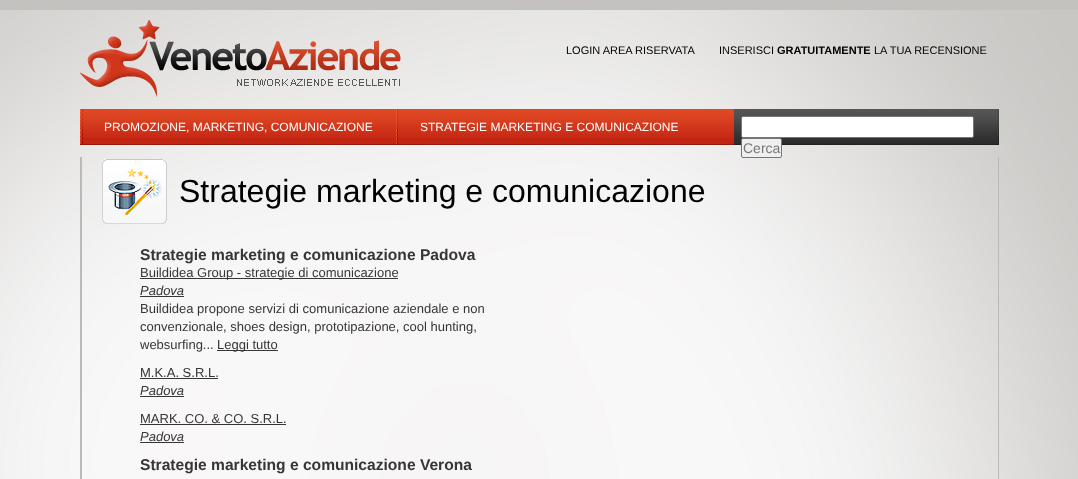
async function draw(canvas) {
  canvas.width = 1078
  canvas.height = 479
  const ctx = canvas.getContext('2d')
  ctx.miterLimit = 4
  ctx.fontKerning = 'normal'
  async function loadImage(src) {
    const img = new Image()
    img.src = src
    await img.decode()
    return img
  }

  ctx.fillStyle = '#fff'
  ctx.fillRect(0, 0, 1078, 479)
  ctx.drawImage(await loadImage('image0.png'), 0, 10, 1078, 469)
  ctx.fillStyle = '#c4c1be'
  ctx.fillRect(0, 0, 1078, 10)
  ctx.drawImage(await loadImage('image1.png'), 80, 20, 321, 77)
  ctx.font = '11px Liberation Sans'
  ctx.fillStyle = '#000'
  ctx.fillText('LOGIN AREA RISERVATA', 566, 54)
  ctx.fillText('INSERISCI', 719, 54)
  ctx.font = 'bold 11px Liberation Sans'
  ctx.fillText('GRATUITAMENTE', 777, 54)
  ctx.font = '11px Liberation Sans'
  ctx.fillText('LA TUA RECENSIONE', 874, 54)
  ctx.fillStyle = '#c32513'
  ctx.fillRect(83, 138, 651, 6)
  ctx.drawImage(await loadImage('image2.png'), 83, 109, 651, 29)
  ctx.fillStyle = '#911c0d'
  ctx.fillRect(80, 144, 654, 1)
  ctx.drawImage(await loadImage('image3.png'), 80, 109, 3, 35)
  ctx.font = '12px Liberation Sans'
  ctx.fillStyle = '#fff'
  ctx.fillText('PROMOZIONE, MARKETING, COMUNICAZIONE', 104, 131)
  ctx.drawImage(await loadImage('image4.png'), 396, 109, 2, 35)
  ctx.fillText('STRATEGIE MARKETING E COMUNICAZIONE', 420, 131)
  ctx.drawImage(await loadImage('image5.png'), 734, 109, 265, 36)
  ctx.beginPath()
  ctx.roundRect(741.5, 116.5, 232, 21, 1.5)
  ctx.fill()
  ctx.strokeStyle = '#767676'
  ctx.stroke()
  ctx.fillStyle = '#efefef'
  ctx.beginPath()
  ctx.roundRect(741.5, 138.5, 40, 19, 1.5)
  ctx.fill()
  ctx.stroke()
  ctx.font = '14px Liberation Sans'
  ctx.fillStyle = '#777'
  ctx.fillText('Cerca', 743, 153)
  ctx.fillStyle = '#bbbab9'
  ctx.fillRect(80, 157, 2, 322)
  ctx.fillRect(998, 157, 1, 322)
  ctx.drawImage(await loadImage('image6.png'), 102, 159, 65, 65)
  ctx.font = '32px Liberation Sans'
  ctx.fillStyle = '#000'
  ctx.fillText('Strategie marketing e comunicazione', 179, 202)
  ctx.font = 'bold 15.6px Liberation Sans'
  ctx.fillStyle = '#363636'
  ctx.fillText('Strategie marketing e comunicazione Padova', 140, 260)
  ctx.fillRect(140, 278, 258, 1)
  ctx.font = '13px Liberation Sans'
  ctx.fillText('Buildidea Group - strategie di comunicazione', 140, 277)
  ctx.font = 'italic 13px Liberation Sans'
  ctx.fillText('Padova', 140, 295)
  ctx.fillRect(140, 296, 44, 1)
  ctx.font = '13px Liberation Sans'
  ctx.fillText('Buildidea propone servizi di comunicazione aziendale e non', 140, 313)
  ctx.fillText('convenzionale, shoes design, prototipazione, cool hunting,', 140, 331)
  ctx.fillText('websurfing...', 140, 349)
  ctx.fillRect(217, 350, 61, 1)
  ctx.fillText('Leggi tutto', 217, 349)
  ctx.fillText('M.K.A. S.R.L.', 140, 377)
  ctx.fillRect(140, 378, 78, 1)
  ctx.font = 'italic 13px Liberation Sans'
  ctx.fillText('Padova', 140, 395)
  ctx.fillRect(140, 396, 44, 1)
  ctx.font = '13px Liberation Sans'
  ctx.fillText('MARK. CO. & CO. S.R.L.', 140, 423)
  ctx.fillRect(140, 424, 146, 1)
  ctx.font = 'italic 13px Liberation Sans'
  ctx.fillText('Padova', 140, 441)
  ctx.fillRect(140, 442, 44, 1)
  ctx.font = 'bold 15.6px Liberation Sans'
  ctx.fillText('Strategie marketing e comunicazione Verona', 140, 470)
}

draw(document.querySelector('canvas'))
